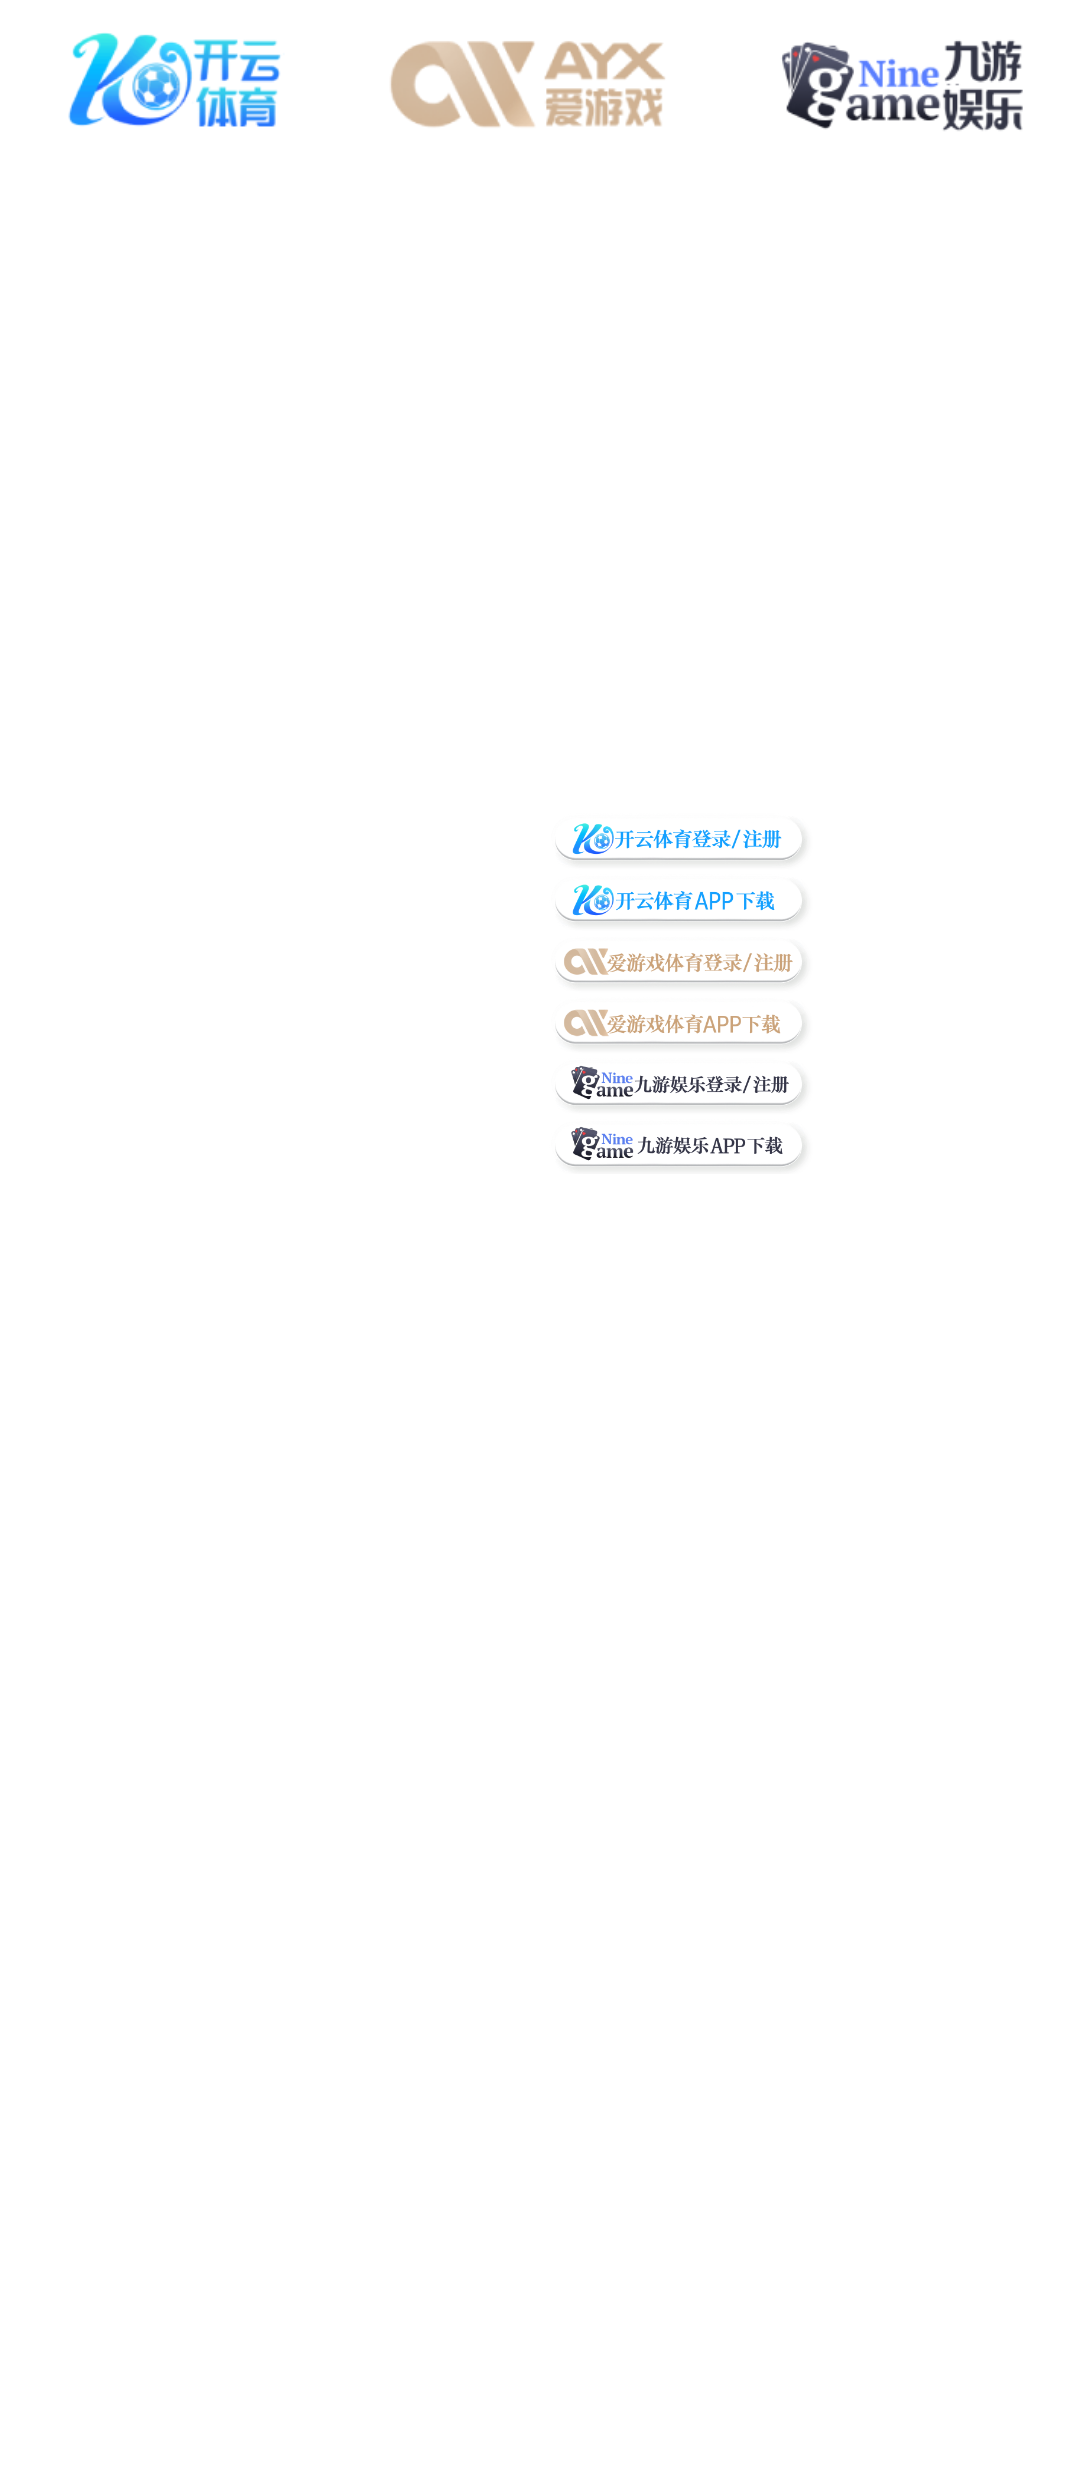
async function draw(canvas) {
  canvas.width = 1085
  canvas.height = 2478
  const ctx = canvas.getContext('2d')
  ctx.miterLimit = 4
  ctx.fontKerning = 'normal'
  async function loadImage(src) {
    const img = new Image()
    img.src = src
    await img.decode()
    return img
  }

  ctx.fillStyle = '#fff'
  ctx.fillRect(0, 0, 1085, 2478)
  ctx.drawImage(await loadImage('image0.png'), 68, 32, 955, 1142)
}

draw(document.querySelector('canvas'))
